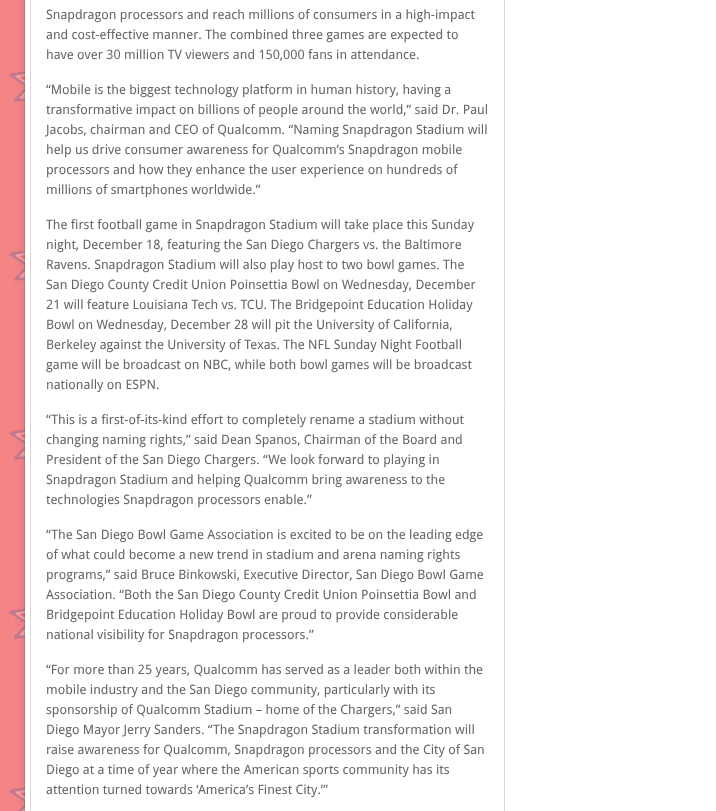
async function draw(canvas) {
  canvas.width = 716
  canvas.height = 811
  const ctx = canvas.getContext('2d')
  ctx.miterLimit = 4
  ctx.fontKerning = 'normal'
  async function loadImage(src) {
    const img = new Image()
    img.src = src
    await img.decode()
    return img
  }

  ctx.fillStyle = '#fff'
  ctx.fillRect(0, 0, 716, 811)
  ctx.drawImage(await loadImage('image0.png'), 0, 0, 25, 811)
  ctx.fillStyle = '#0000001a'
  ctx.filter = 'blur(5px)'
  ctx.beginPath()
  ctx.rect(24, -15, 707, 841)
  ctx.fill()
  ctx.filter = 'none'
  ctx.fillStyle = '#fff'
  ctx.fillRect(25, 0, 691, 811)
  ctx.fillStyle = '#0000001a'
  ctx.fillRect(24, 0, 1, 811)
  ctx.beginPath()
  ctx.moveTo(31.5, 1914.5)
  ctx.lineTo(30.5, 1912)
  ctx.lineTo(30.5, -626)
  ctx.bezierCurveTo(30.5, -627.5, 31, -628.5, 32.5, -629)
  ctx.lineTo(34, -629.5)
  ctx.lineTo(502, -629.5)
  ctx.bezierCurveTo(503, -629, 504, -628, 504.5, -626.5)
  ctx.lineTo(504.5, 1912)
  ctx.lineTo(503.5, 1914.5)
  ctx.strokeStyle = '#d9d9d9'
  ctx.stroke()
  ctx.font = '13px Droid Sans'
  ctx.fillStyle = '#666'
  ctx.fillText('Snapdragon processors and reach millions of consumers in a high-impact', 46, 19)
  ctx.fillText('and cost-effective manner. The combined three games are expected to', 46, 39)
  ctx.fillText('have over 30 million TV viewers and 150,000 fans in attendance.', 46, 59)
  ctx.fillText('“Mobile is the biggest technology platform in human history, having a', 46, 94)
  ctx.fillText('transformative impact on billions of people around the world,” said Dr. Paul', 46, 114)
  ctx.fillText('Jacobs, chairman and CEO of Qualcomm. “Naming Snapdragon Stadium will', 46, 134)
  ctx.fillText('help us drive consumer awareness for Qualcomm’s Snapdragon mobile', 46, 154)
  ctx.fillText('processors and how they enhance the user experience on hundreds of', 46, 174)
  ctx.fillText('millions of smartphones worldwide.”', 46, 194)
  ctx.fillText('The first football game in Snapdragon Stadium will take place this Sunday', 46, 229)
  ctx.fillText('night, December 18, featuring the San Diego Chargers vs. the Baltimore', 46, 249)
  ctx.fillText('Ravens. Snapdragon Stadium will also play host to two bowl games. The', 46, 269)
  ctx.fillText('San Diego County Credit Union Poinsettia Bowl on Wednesday, December', 46, 289)
  ctx.fillText('21 will feature Louisiana Tech vs. TCU. The Bridgepoint Education Holiday', 46, 309)
  ctx.fillText('Bowl on Wednesday, December 28 will pit the University of California,', 46, 329)
  ctx.fillText('Berkeley against the University of Texas. The NFL Sunday Night Football', 46, 349)
  ctx.fillText('game will be broadcast on NBC, while both bowl games will be broadcast', 46, 369)
  ctx.fillText('nationally on ESPN.', 46, 389)
  ctx.fillText('“This is a first-of-its-kind effort to completely rename a stadium without', 46, 424)
  ctx.fillText('changing naming rights,” said Dean Spanos, Chairman of the Board and', 46, 444)
  ctx.fillText('President of the San Diego Chargers. “We look forward to playing in', 46, 464)
  ctx.fillText('Snapdragon Stadium and helping Qualcomm bring awareness to the', 46, 484)
  ctx.fillText('technologies Snapdragon processors enable.”', 46, 504)
  ctx.fillText('“The San Diego Bowl Game Association is excited to be on the leading edge', 46, 539)
  ctx.fillText('of what could become a new trend in stadium and arena naming rights', 46, 559)
  ctx.fillText('programs,” said Bruce Binkowski, Executive Director, San Diego Bowl Game', 46, 579)
  ctx.fillText('Association. “Both the San Diego County Credit Union Poinsettia Bowl and', 46, 599)
  ctx.fillText('Bridgepoint Education Holiday Bowl are proud to provide considerable', 46, 619)
  ctx.fillText('national visibility for Snapdragon processors.”', 46, 639)
  ctx.fillText('“For more than 25 years, Qualcomm has served as a leader both within the', 46, 674)
  ctx.fillText('mobile industry and the San Diego community, particularly with its', 46, 694)
  ctx.fillText('sponsorship of Qualcomm Stadium – home of the Chargers,” said San', 46, 714)
  ctx.fillText('Diego Mayor Jerry Sanders. “The Snapdragon Stadium transformation will', 46, 734)
  ctx.fillText('raise awareness for Qualcomm, Snapdragon processors and the City of San', 46, 754)
  ctx.fillText('Diego at a time of year where the American sports community has its', 46, 774)
  ctx.fillText('attention turned towards ‘America’s Finest City.’”', 46, 794)
}

draw(document.querySelector('canvas'))
